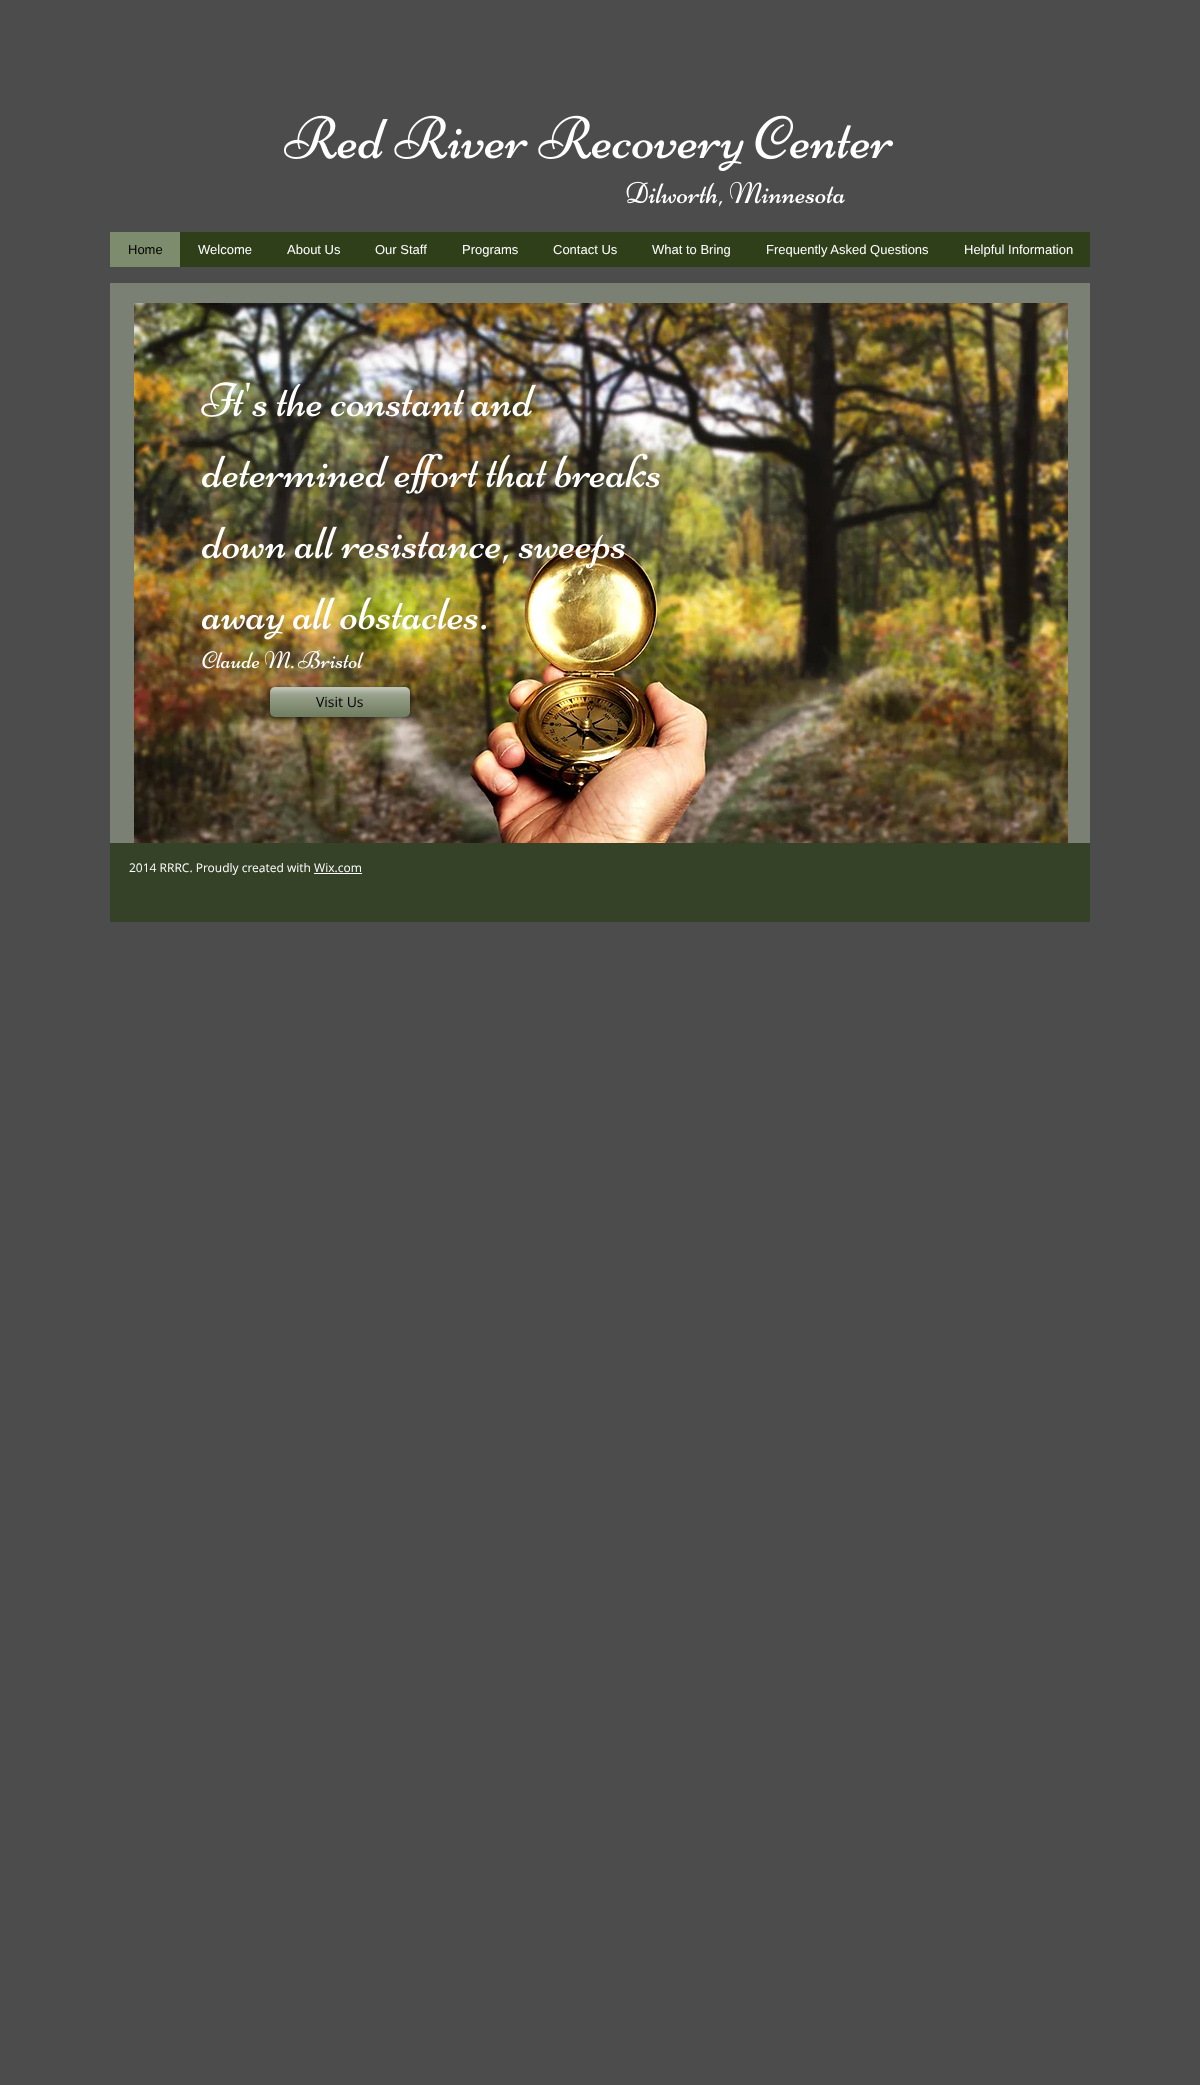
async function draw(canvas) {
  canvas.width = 1200
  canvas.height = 2085
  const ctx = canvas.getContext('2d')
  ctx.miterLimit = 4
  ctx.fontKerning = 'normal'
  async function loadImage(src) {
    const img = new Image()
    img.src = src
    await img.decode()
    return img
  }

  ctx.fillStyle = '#4c4c4c'
  ctx.fillRect(0, 0, 1200, 2085)
  ctx.drawImage(await loadImage('image0.png'), 284, 115, 610, 56)
  ctx.drawImage(await loadImage('image1.png'), 626, 181, 219, 26)
  ctx.fillStyle = '#2f3f1a'
  ctx.fillRect(180, 232, 910, 35)
  ctx.fillStyle = '#7d8c6c'
  ctx.fillRect(110, 232, 70, 35)
  ctx.font = '13px Liberation Sans'
  ctx.fillStyle = '#000'
  ctx.fillText('Home', 128, 254)
  ctx.fillStyle = '#fff'
  ctx.fillText('Welcome', 198, 254)
  ctx.fillText('About Us', 287, 254)
  ctx.fillText('Our Staff', 375, 254)
  ctx.fillText('Programs', 462, 254)
  ctx.fillText('Contact Us', 553, 254)
  ctx.fillText('What to Bring', 652, 254)
  ctx.fillText('Frequently Asked Questions', 766, 254)
  ctx.fillText('Helpful Information', 964, 254)
  ctx.fillStyle = '#7b8074'
  ctx.fillRect(110, 283, 980, 560)
  ctx.drawImage(await loadImage('image2.png'), 134, 303, 934, 540)
  ctx.drawImage(await loadImage('image3.png'), 201, 382, 335, 35)
  ctx.drawImage(await loadImage('image4.png'), 202, 453, 458, 41)
  ctx.drawImage(await loadImage('image5.png'), 202, 526, 423, 43)
  ctx.drawImage(await loadImage('image6.png'), 202, 597, 284, 43)
  ctx.drawImage(await loadImage('image7.png'), 202, 650, 162, 19)
  ctx.fillStyle = '#00000099'
  ctx.filter = 'blur(2px)'
  ctx.beginPath()
  ctx.roundRect(270, 688, 140, 30, 5)
  ctx.fill()
  ctx.filter = 'none'
  ctx.fillStyle = '#616f4e'
  ctx.beginPath()
  ctx.roundRect(270, 687, 140, 30, 5)
  ctx.fill()
  ctx.drawImage(await loadImage('image8.png'), 270, 687, 140, 30)
  ctx.font = '14px Open Sans'
  ctx.fillStyle = '#000'
  ctx.fillText('Visit Us', 316, 707)
  ctx.fillStyle = '#364227'
  ctx.fillRect(110, 843, 980, 79)
  ctx.font = '12px Open Sans'
  ctx.fillStyle = '#fff'
  ctx.fillText('2014 RRRC. Proudly created with Wix.com', 129, 872)
  ctx.fillRect(314, 873, 48, 1)
}

draw(document.querySelector('canvas'))
